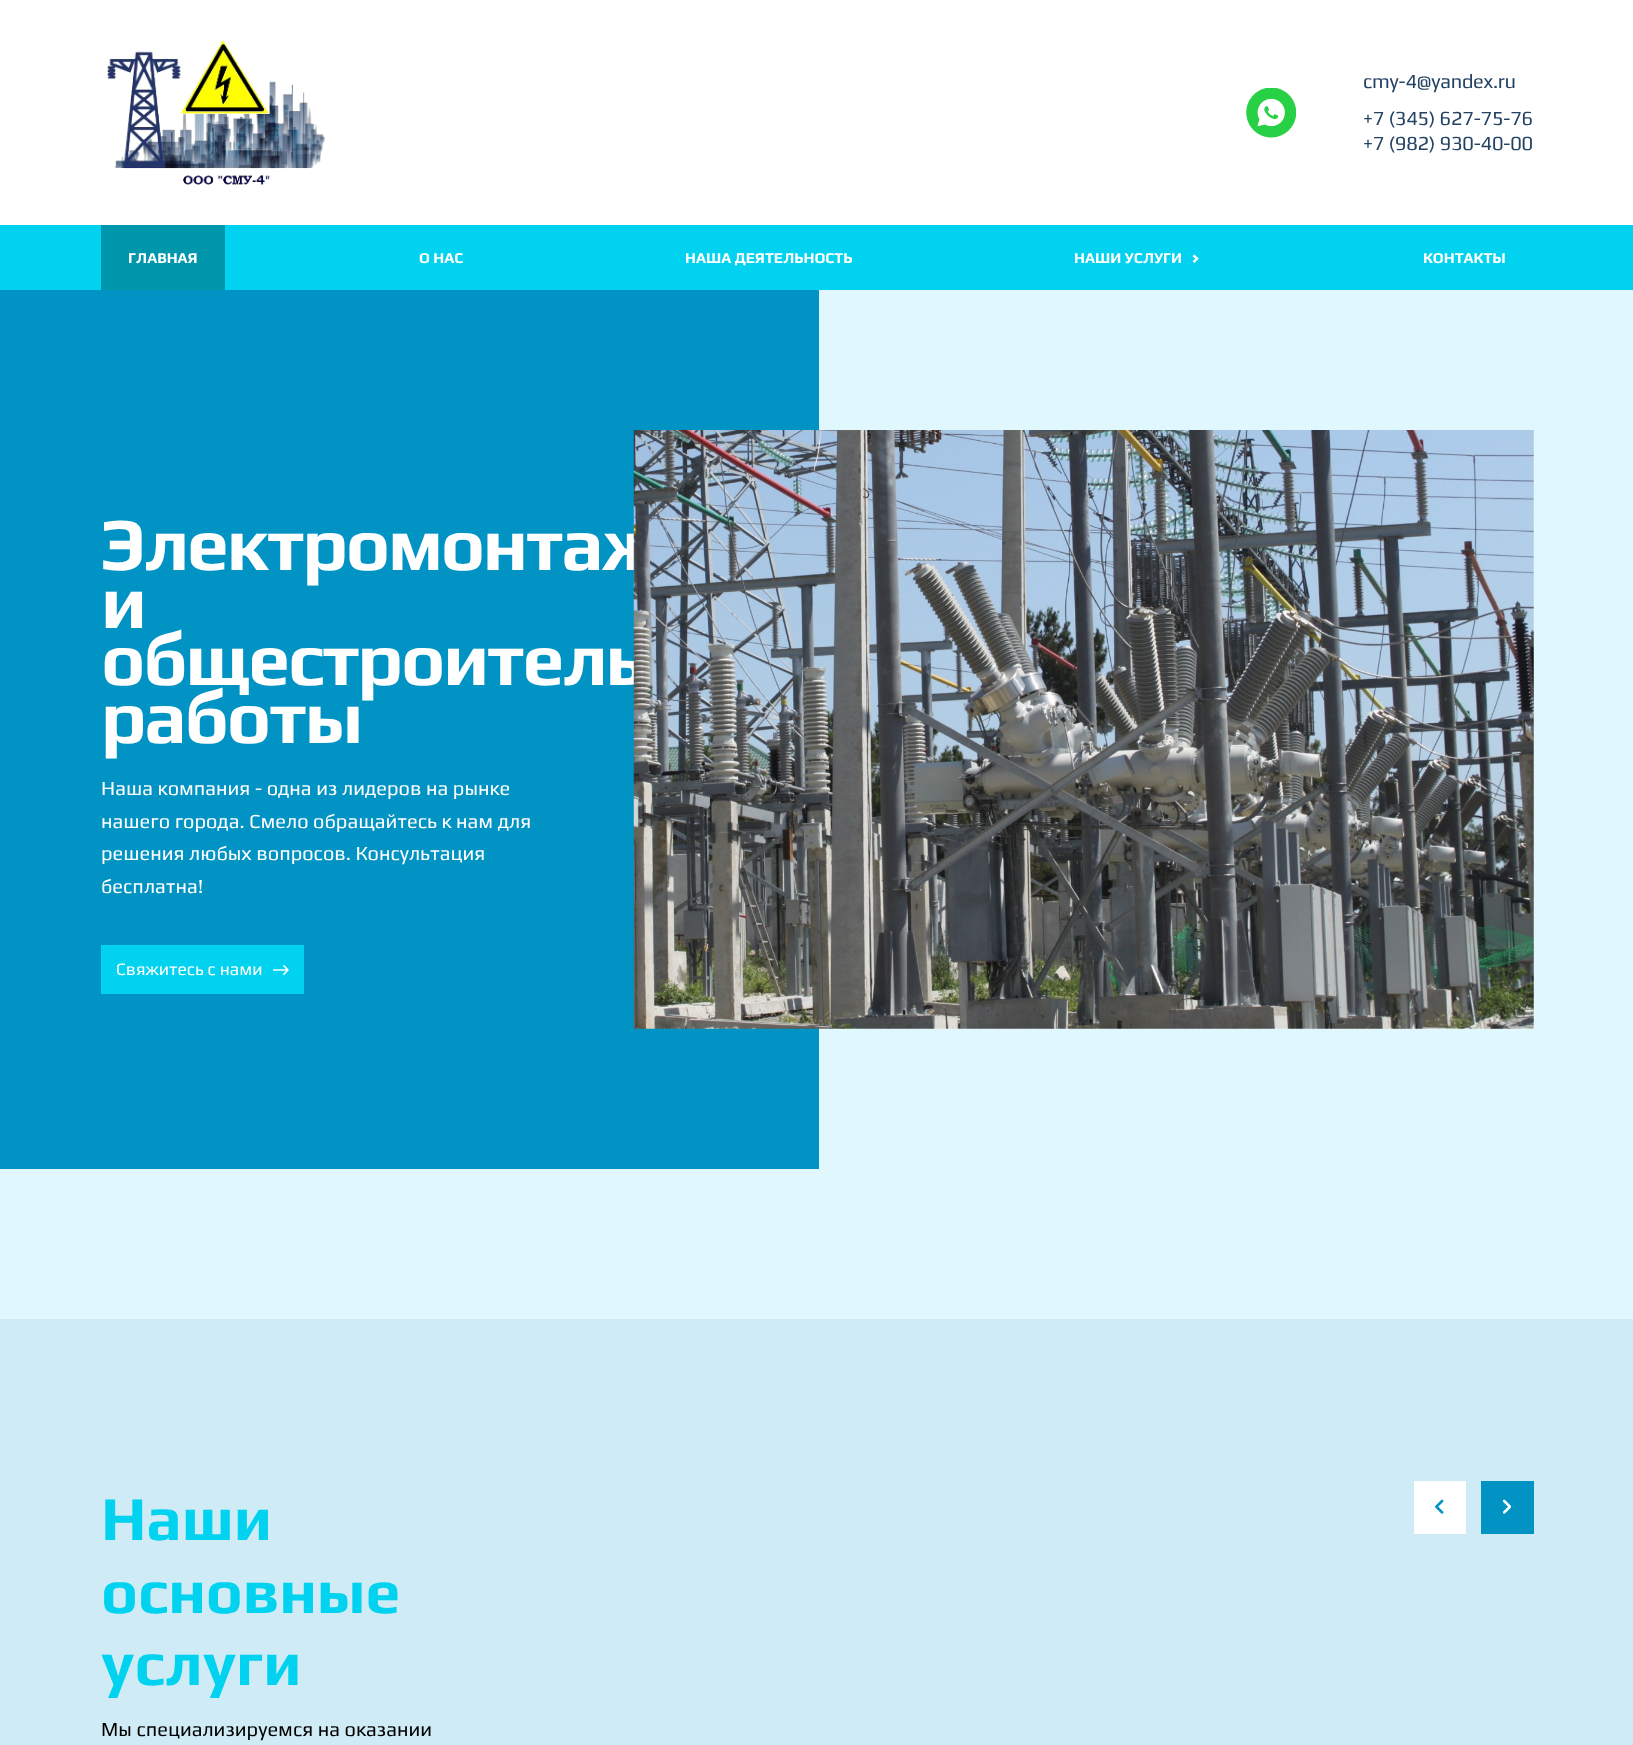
async function draw(canvas) {
  canvas.width = 1633
  canvas.height = 1745
  const ctx = canvas.getContext('2d')
  ctx.miterLimit = 4
  ctx.fontKerning = 'normal'
  async function loadImage(src) {
    const img = new Image()
    img.src = src
    await img.decode()
    return img
  }

  ctx.fillStyle = '#cfebf5'
  ctx.fillRect(0, 0, 1633, 1745)
  ctx.fillStyle = '#fff'
  ctx.fillRect(0, 0, 1633, 225)
  ctx.drawImage(await loadImage('image0.png'), 107, 39, 219, 146)
  ctx.drawImage(await loadImage('image1.png'), 1246, 88, 50, 50)
  ctx.letterSpacing = '-0.25px'
  ctx.font = '20px Play'
  ctx.fillStyle = '#244364'
  ctx.fillText('cmy-4@yandex.ru', 1363, 88)
  ctx.fillText('+7 (345) 627-75-76', 1363, 125)
  ctx.fillText('+7 (982) 930-40-00', 1363, 150)
  ctx.fillStyle = '#00d2ef'
  ctx.fillRect(0, 225, 1633, 65)
  ctx.fillStyle = '#0097ac'
  ctx.fillRect(101, 225, 124, 65)
  ctx.letterSpacing = '0px'
  ctx.font = 'bold 15px Play'
  ctx.fillStyle = '#fff'
  ctx.fillText('ГЛАВНАЯ', 128, 263)
  ctx.fillText('О НАС', 419, 263)
  ctx.fillText('НАША ДЕЯТЕЛЬНОСТЬ', 685, 263)
  ctx.fillText('НАШИ УСЛУГИ', 1074, 263)
  ctx.beginPath()
  ctx.moveTo(1197, 260.5)
  ctx.lineTo(1192.5, 256)
  ctx.lineTo(1194.5, 254.5)
  ctx.lineTo(1198.5, 258.5)
  ctx.closePath()
  ctx.fill()
  ctx.beginPath()
  ctx.moveTo(1194.5, 263)
  ctx.lineTo(1192.5, 261.5)
  ctx.lineTo(1197, 257)
  ctx.lineTo(1198.5, 258.5)
  ctx.closePath()
  ctx.fill()
  ctx.fillText('КОНТАКТЫ', 1423, 263)
  ctx.fillStyle = '#e0f8fd'
  ctx.fillRect(0, 290, 1633, 1029)
  ctx.fillStyle = '#0093c4'
  ctx.fillRect(0, 290, 819, 879)
  ctx.letterSpacing = '-2.25px'
  ctx.font = 'bold 75px Play'
  ctx.fillStyle = '#fff'
  ctx.fillText('Электромонтаж', 101, 570)
  ctx.fillText('и', 101, 628)
  ctx.fillText('общестроитель', 101, 685)
  ctx.fillText('работы', 101, 743)
  ctx.letterSpacing = '0px'
  ctx.font = '20px Play'
  ctx.fillText('Наша компания - одна из лидеров на рынке', 101, 795)
  ctx.fillText('нашего города. Смело обращайтесь к нам для', 101, 828)
  ctx.fillText('решения любых вопросов. Консультация', 101, 860)
  ctx.fillText('бесплатна!', 101, 893)
  ctx.fillStyle = '#00d2ef'
  ctx.fillRect(101, 945, 203, 49)
  ctx.font = '17.5px Play'
  ctx.fillStyle = '#fff'
  ctx.fillText('Свяжитесь с нами', 116, 975)
  ctx.drawImage(await loadImage('image2.png'), 273, 965, 16, 10)
  ctx.drawImage(await loadImage('image3.png'), 633, 430, 901, 599)
  ctx.font = 'bold 62.5px Play'
  ctx.fillStyle = '#00d2ef'
  ctx.fillText('Наши', 101, 1540)
  ctx.fillText('основные', 101, 1613)
  ctx.fillText('услуги', 101, 1685)
  ctx.font = '20px Play'
  ctx.fillStyle = '#000'
  ctx.fillText('Мы специализируемся на оказании', 101, 1736)
  ctx.fillStyle = '#fff'
  ctx.fillRect(1414, 1481, 52, 53)
  ctx.drawImage(await loadImage('image4.png'), 1435, 1499, 9, 15)
  ctx.fillStyle = '#0093c4'
  ctx.fillRect(1481, 1481, 53, 53)
  ctx.drawImage(await loadImage('image5.png'), 1503, 1499, 8, 15)
}

draw(document.querySelector('canvas'))
